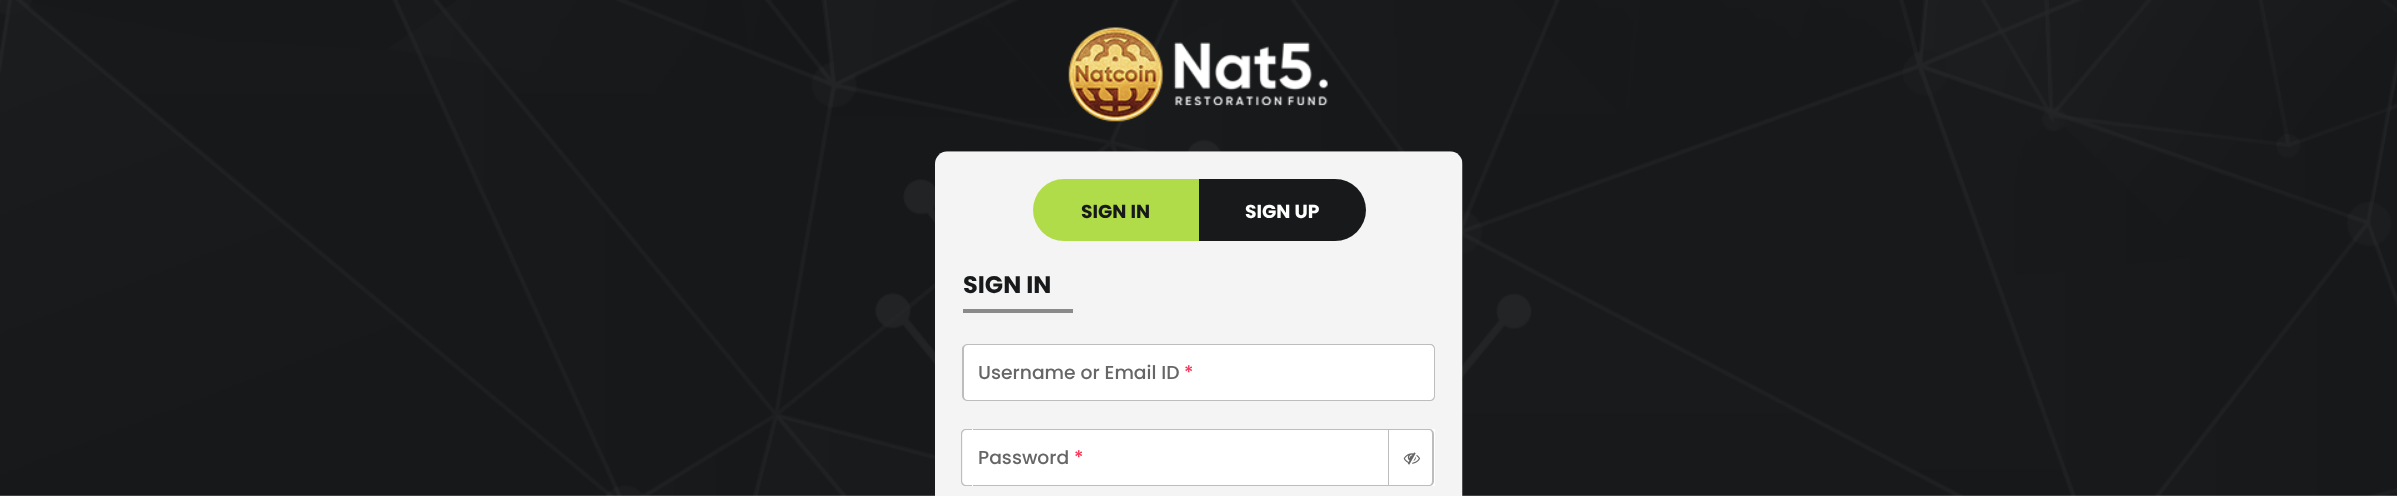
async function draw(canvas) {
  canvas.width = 2397
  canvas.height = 496
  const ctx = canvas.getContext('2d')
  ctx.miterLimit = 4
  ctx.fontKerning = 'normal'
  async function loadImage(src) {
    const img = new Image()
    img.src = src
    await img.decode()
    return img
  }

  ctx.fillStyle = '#fff'
  ctx.fillRect(0, 0, 2397, 496)
  ctx.drawImage(await loadImage('image0.png'), 0, 0, 2397, 496)
  ctx.drawImage(await loadImage('image1.png'), 1068, 27, 260, 95)
  ctx.drawImage(await loadImage('image2.png'), 935, 151, 528, 345)
  ctx.fillStyle = '#b0dc49'
  ctx.beginPath()
  ctx.roundRect(1033, 179, 166, 62, [31, 0, 0, 31])
  ctx.fill()
  ctx.font = 'bold 18.75px Poppins'
  ctx.fillStyle = '#17191a'
  ctx.fillText('SIGN IN', 1081, 218)
  ctx.beginPath()
  ctx.roundRect(1199, 179, 167, 62, [0, 31, 31, 0])
  ctx.fill()
  ctx.fillStyle = '#fff'
  ctx.fillText('SIGN UP', 1245, 218)
  ctx.font = 'bold 24px Poppins'
  ctx.fillStyle = '#17191a'
  ctx.fillText('SIGN IN', 963, 293)
  ctx.fillStyle = '#8a8a8a'
  ctx.fillRect(963, 309, 110, 4)
  ctx.fillStyle = '#fff'
  ctx.beginPath()
  ctx.roundRect(963, 344, 472, 57, 5)
  ctx.fill()
  ctx.fillStyle = '#bdbdbd'
  ctx.beginPath()
  ctx.moveTo(968, 344)
  ctx.lineTo(974, 344)
  ctx.lineTo(974, 401)
  ctx.lineTo(968, 401)
  ctx.bezierCurveTo(965, 401, 962, 399, 962, 396)
  ctx.lineTo(962, 349)
  ctx.bezierCurveTo(962, 346, 965, 344, 968, 344)
  ctx.closePath()
  ctx.moveTo(968, 345)
  ctx.lineTo(974, 345)
  ctx.lineTo(974, 400)
  ctx.lineTo(968, 400)
  ctx.bezierCurveTo(965, 400, 964, 398, 964, 396)
  ctx.lineTo(964, 349)
  ctx.bezierCurveTo(964, 347, 965, 345, 968, 345)
  ctx.closePath()
  ctx.fill('evenodd')
  ctx.fillRect(974, 344, 167, 1)
  ctx.fillRect(974, 400, 167, 1)
  ctx.font = '500 18.75px Poppins'
  ctx.fillStyle = '#666'
  ctx.fillText('Username or Email ID', 978, 379)
  ctx.fillStyle = '#f93154'
  ctx.fillText('*', 1184, 379)
  ctx.fillStyle = '#bdbdbd'
  ctx.beginPath()
  ctx.moveTo(1141, 344)
  ctx.lineTo(1430, 344)
  ctx.bezierCurveTo(1433, 344, 1435, 346, 1435, 349)
  ctx.lineTo(1435, 396)
  ctx.bezierCurveTo(1435, 399, 1433, 401, 1430, 401)
  ctx.lineTo(1141, 401)
  ctx.closePath()
  ctx.moveTo(1141, 345)
  ctx.lineTo(1430, 345)
  ctx.bezierCurveTo(1432, 345, 1434, 347, 1434, 349)
  ctx.lineTo(1434, 396)
  ctx.bezierCurveTo(1434, 398, 1432, 400, 1430, 400)
  ctx.lineTo(1141, 400)
  ctx.closePath()
  ctx.fill('evenodd')
  ctx.fillStyle = '#fff'
  ctx.beginPath()
  ctx.roundRect(963, 429, 425, 57, [5, 0, 0, 5])
  ctx.fill()
  ctx.fillStyle = '#bdbdbd'
  ctx.beginPath()
  ctx.moveTo(966, 429)
  ctx.lineTo(972, 429)
  ctx.lineTo(972, 486)
  ctx.lineTo(966, 486)
  ctx.bezierCurveTo(963, 486, 961, 484, 961, 481)
  ctx.lineTo(961, 434)
  ctx.bezierCurveTo(961, 431, 963, 429, 966, 429)
  ctx.closePath()
  ctx.moveTo(966, 430)
  ctx.lineTo(972, 430)
  ctx.lineTo(972, 485)
  ctx.lineTo(966, 485)
  ctx.bezierCurveTo(964, 485, 962, 483, 962, 481)
  ctx.lineTo(962, 434)
  ctx.bezierCurveTo(962, 432, 964, 430, 966, 430)
  ctx.closePath()
  ctx.fill('evenodd')
  ctx.fillRect(973, 429, 86, 1)
  ctx.fillRect(973, 485, 86, 1)
  ctx.fillStyle = '#fff'
  ctx.fillRect(1389, 429, 46, 57)
  ctx.fillStyle = '#bdbdbd'
  ctx.fillRect(1388, 429, 1, 57)
  ctx.drawImage(await loadImage('image3.png'), 1403, 452, 17, 13)
  ctx.fillStyle = '#666'
  ctx.fillText('Password', 978, 464)
  ctx.fillStyle = '#f93154'
  ctx.fillText('*', 1074, 464)
  ctx.fillStyle = '#bdbdbd'
  ctx.beginPath()
  ctx.moveTo(1059, 429)
  ctx.lineTo(1429, 429)
  ctx.bezierCurveTo(1432, 429, 1434, 431, 1434, 434)
  ctx.lineTo(1434, 481)
  ctx.bezierCurveTo(1434, 484, 1432, 486, 1429, 486)
  ctx.lineTo(1059, 486)
  ctx.closePath()
  ctx.moveTo(1059, 430)
  ctx.lineTo(1429, 430)
  ctx.bezierCurveTo(1431, 430, 1432, 432, 1432, 434)
  ctx.lineTo(1432, 481)
  ctx.bezierCurveTo(1432, 483, 1431, 485, 1429, 485)
  ctx.lineTo(1059, 485)
  ctx.closePath()
  ctx.fill('evenodd')
}

draw(document.querySelector('canvas'))
